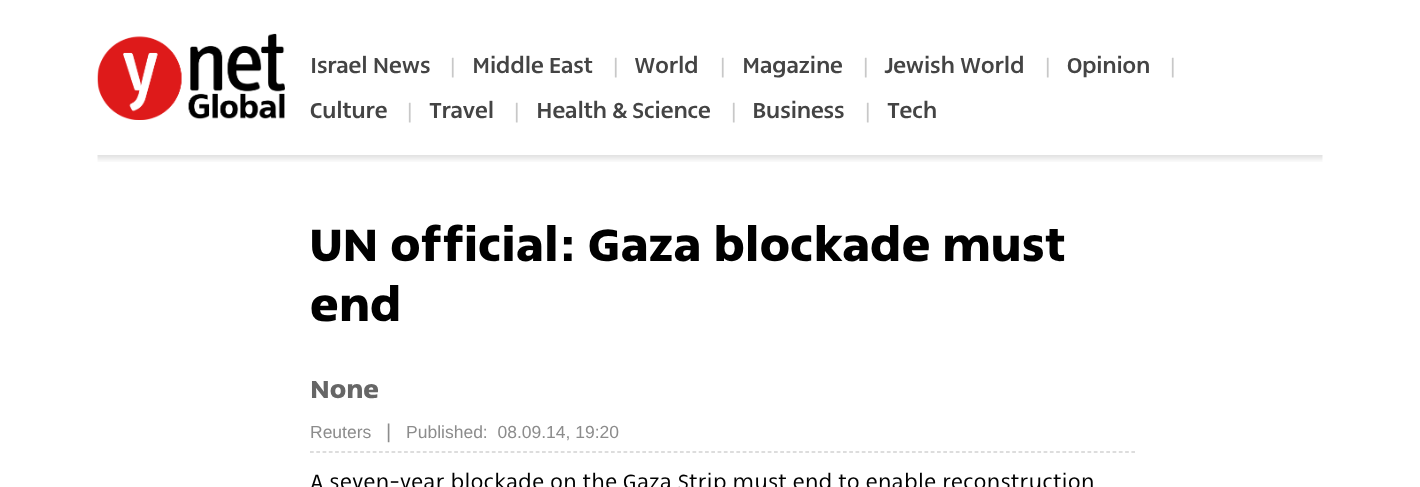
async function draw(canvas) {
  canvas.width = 1420
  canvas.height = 487
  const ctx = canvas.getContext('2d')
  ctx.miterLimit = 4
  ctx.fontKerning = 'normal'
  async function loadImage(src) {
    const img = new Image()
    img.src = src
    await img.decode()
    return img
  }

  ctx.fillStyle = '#fff'
  ctx.fillRect(0, 0, 1420, 487)
  ctx.drawImage(await loadImage('image0.png'), 97, 33, 188, 87)
  ctx.letterSpacing = '-0.6px'
  ctx.font = '500 26.25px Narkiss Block'
  ctx.fillStyle = '#444'
  ctx.fillText('Israel News', 310, 73)
  ctx.letterSpacing = '0px'
  ctx.font = '21px Liberation Sans'
  ctx.fillStyle = '#c8c8c8'
  ctx.fillText('|', 450, 73)
  ctx.letterSpacing = '-0.6px'
  ctx.font = '500 26.25px Narkiss Block'
  ctx.fillStyle = '#444'
  ctx.fillText('Middle East', 472, 73)
  ctx.letterSpacing = '0px'
  ctx.font = '21px Liberation Sans'
  ctx.fillStyle = '#c8c8c8'
  ctx.fillText('|', 613, 73)
  ctx.letterSpacing = '-0.6px'
  ctx.font = '500 26.25px Narkiss Block'
  ctx.fillStyle = '#444'
  ctx.fillText('World', 634, 73)
  ctx.letterSpacing = '0px'
  ctx.font = '21px Liberation Sans'
  ctx.fillStyle = '#c8c8c8'
  ctx.fillText('|', 720, 73)
  ctx.letterSpacing = '-0.6px'
  ctx.font = '500 26.25px Narkiss Block'
  ctx.fillStyle = '#444'
  ctx.fillText('Magazine', 742, 73)
  ctx.letterSpacing = '0px'
  ctx.font = '21px Liberation Sans'
  ctx.fillStyle = '#c8c8c8'
  ctx.fillText('|', 863, 73)
  ctx.letterSpacing = '-0.6px'
  ctx.font = '500 26.25px Narkiss Block'
  ctx.fillStyle = '#444'
  ctx.fillText('Jewish World', 884, 73)
  ctx.letterSpacing = '0px'
  ctx.font = '21px Liberation Sans'
  ctx.fillStyle = '#c8c8c8'
  ctx.fillText('|', 1045, 73)
  ctx.letterSpacing = '-0.6px'
  ctx.font = '500 26.25px Narkiss Block'
  ctx.fillStyle = '#444'
  ctx.fillText('Opinion', 1067, 73)
  ctx.letterSpacing = '0px'
  ctx.font = '21px Liberation Sans'
  ctx.fillStyle = '#c8c8c8'
  ctx.fillText('|', 1170, 73)
  ctx.letterSpacing = '-0.6px'
  ctx.font = '500 26.25px Narkiss Block'
  ctx.fillStyle = '#444'
  ctx.fillText('Culture', 310, 118)
  ctx.letterSpacing = '0px'
  ctx.font = '21px Liberation Sans'
  ctx.fillStyle = '#c8c8c8'
  ctx.fillText('|', 407, 118)
  ctx.letterSpacing = '-0.6px'
  ctx.font = '500 26.25px Narkiss Block'
  ctx.fillStyle = '#444'
  ctx.fillText('Travel', 429, 118)
  ctx.letterSpacing = '0px'
  ctx.font = '21px Liberation Sans'
  ctx.fillStyle = '#c8c8c8'
  ctx.fillText('|', 514, 118)
  ctx.letterSpacing = '-0.6px'
  ctx.font = '500 26.25px Narkiss Block'
  ctx.fillStyle = '#444'
  ctx.fillText('Health & Science', 536, 118)
  ctx.letterSpacing = '0px'
  ctx.font = '21px Liberation Sans'
  ctx.fillStyle = '#c8c8c8'
  ctx.fillText('|', 731, 118)
  ctx.letterSpacing = '-0.6px'
  ctx.font = '500 26.25px Narkiss Block'
  ctx.fillStyle = '#444'
  ctx.fillText('Business', 752, 118)
  ctx.letterSpacing = '0px'
  ctx.font = '21px Liberation Sans'
  ctx.fillStyle = '#c8c8c8'
  ctx.fillText('|', 865, 118)
  ctx.letterSpacing = '-0.6px'
  ctx.font = '500 26.25px Narkiss Block'
  ctx.fillStyle = '#444'
  ctx.fillText('Tech', 887, 118)
  ctx.drawImage(await loadImage('image1.png'), 97, 155, 1226, 7)
  ctx.letterSpacing = '0px'
  ctx.font = 'bold 55px Narkiss Block'
  ctx.fillStyle = '#000'
  ctx.fillText('UN official: Gaza blockade must', 310, 261)
  ctx.fillText('end', 310, 321)
  ctx.font = 'bold 30px Narkiss Block'
  ctx.fillStyle = '#666'
  ctx.fillText('None', 310, 398)
  ctx.font = '17.5px Liberation Sans'
  ctx.fillStyle = '#8c8c8c'
  ctx.fillText('Reuters', 310, 438)
  ctx.font = '20px Liberation Sans'
  ctx.fillText('|', 386, 438)
  ctx.font = '17.5px Liberation Sans'
  ctx.fillText('Published:  08.09.14, 19:20', 406, 438)
  ctx.beginPath()
  ctx.moveTo(310, 452)
  ctx.lineTo(1135, 452)
  ctx.strokeStyle = '#bcbcbc'
  ctx.lineWidth = 1.2
  ctx.setLineDash([3.75, 2.52])
  ctx.stroke()
  ctx.font = '300 25px Narkiss Block'
  ctx.fillStyle = '#000'
  ctx.fillText('A seven-year blockade on the Gaza Strip must end to enable reconstruction', 310, 489)
}

draw(document.querySelector('canvas'))
